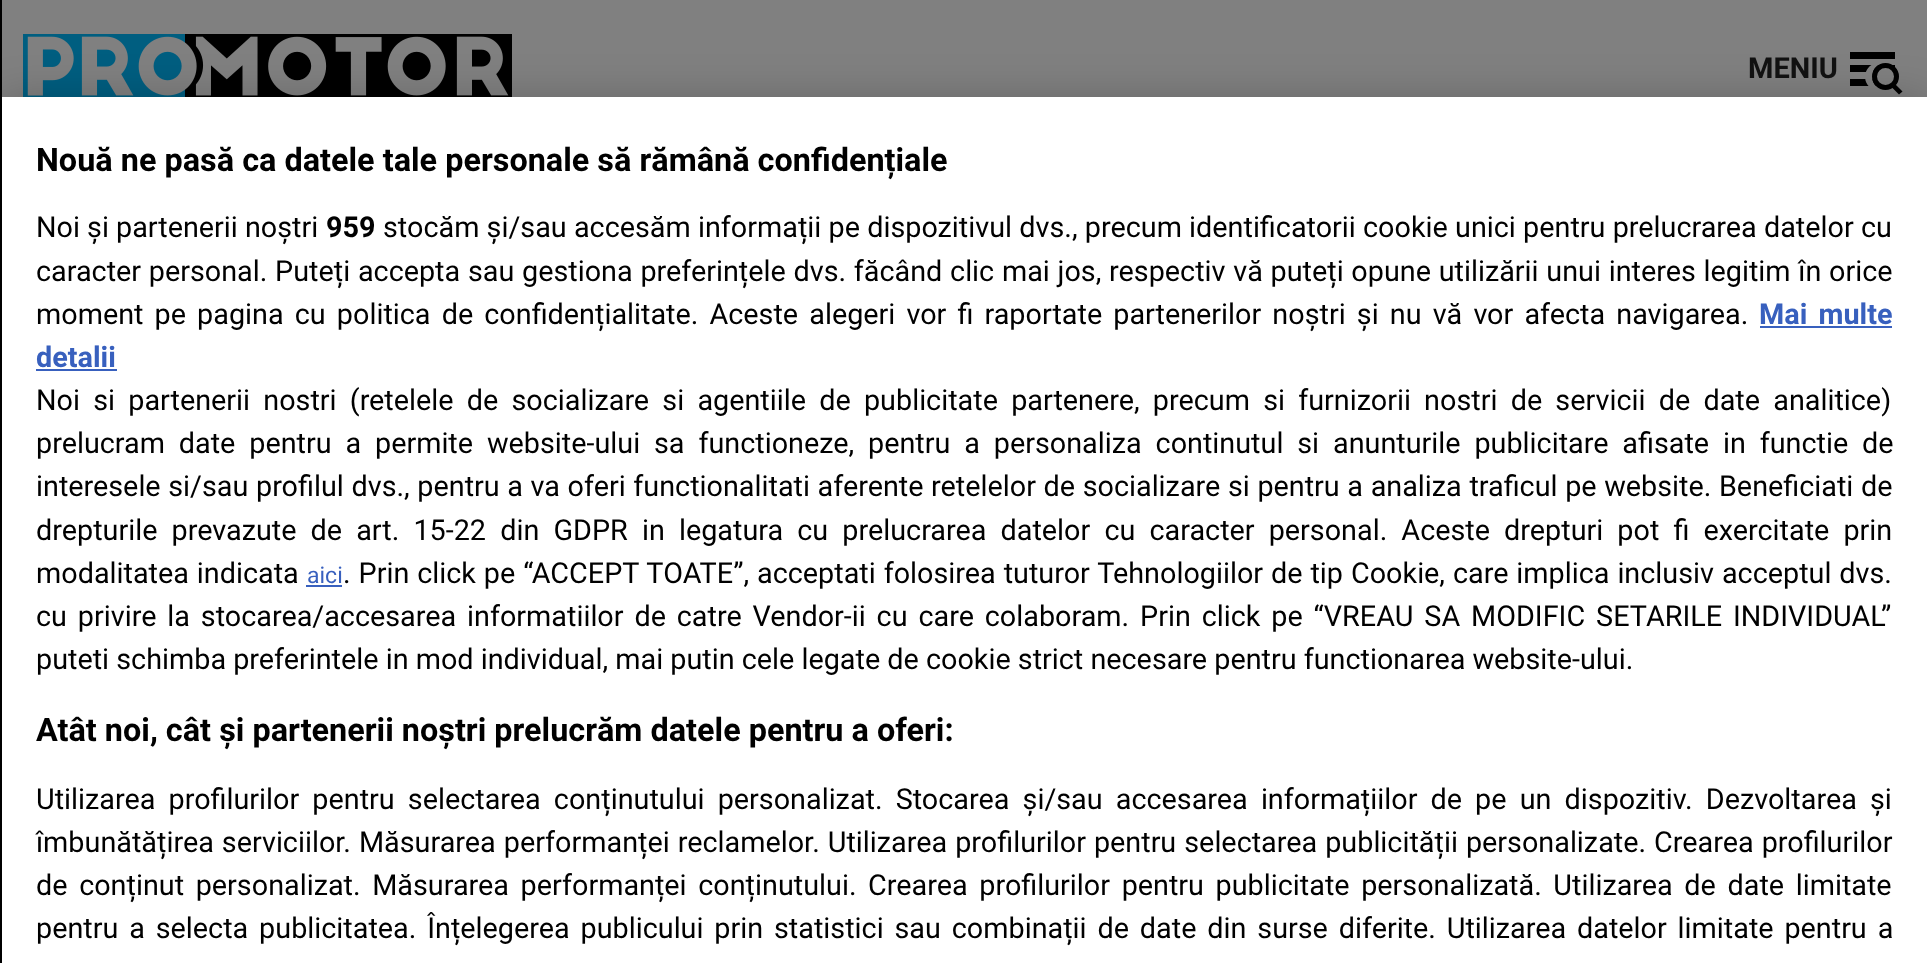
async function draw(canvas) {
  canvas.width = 1927
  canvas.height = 963
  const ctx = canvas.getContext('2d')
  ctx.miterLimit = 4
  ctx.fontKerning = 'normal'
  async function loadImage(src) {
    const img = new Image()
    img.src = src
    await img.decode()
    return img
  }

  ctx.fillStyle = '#808080'
  ctx.fillRect(0, 0, 1927, 963)
  ctx.drawImage(await loadImage('image0.png'), 23, 34, 489, 63)
  ctx.fillStyle = '#000'
  ctx.fillRect(1850, 65, 45, 7)
  ctx.fillRect(1850, 52, 45, 7)
  ctx.fillRect(1850, 79, 26, 7)
  ctx.fillStyle = '#808080'
  ctx.beginPath()
  ctx.moveTo(1878.5, 63)
  ctx.bezierCurveTo(1864, 63, 1860, 83.5, 1873, 89)
  ctx.bezierCurveTo(1876, 90, 1879, 90.5, 1882, 89.5)
  ctx.bezierCurveTo(1869, 86, 1869, 67, 1882, 63.5)
  ctx.closePath()
  ctx.fill()
  ctx.beginPath()
  ctx.arc(1885.5, 76.5, 11, 0, 2 * Math.PI)
  ctx.fill()
  ctx.strokeStyle = '#000'
  ctx.lineWidth = 5
  ctx.stroke()
  ctx.fillStyle = '#000'
  ctx.beginPath()
  ctx.moveTo(1891, 86.5)
  ctx.lineTo(1894.5, 83.5)
  ctx.lineTo(1902.5, 91.5)
  ctx.lineTo(1899, 94.5)
  ctx.closePath()
  ctx.fill()
  ctx.fillStyle = '#00000033'
  ctx.filter = 'blur(20px)'
  ctx.beginPath()
  ctx.rect(0, 97, 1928, 866)
  ctx.fill()
  ctx.filter = 'none'
  ctx.fillStyle = '#000'
  ctx.fillRect(0, 0, 2, 963)
  ctx.font = 'bold 29px Roboto'
  ctx.fillStyle = '#111'
  ctx.fillText('MENIU', 1748, 78)
  ctx.fillStyle = '#fff'
  ctx.fillRect(2, 97, 1925, 866)
  ctx.font = 'bold 32.4px Roboto'
  ctx.fillStyle = '#000'
  ctx.fillText('Nouă ne pasă ca datele tale personale să rămână confidențiale', 36, 171)
  ctx.font = '28.8px Roboto'
  ctx.fillText('Noi și partenerii noștri', 36, 237)
  ctx.font = 'bold 28.8px Roboto'
  ctx.fillText('959', 326, 237)
  ctx.wordSpacing = '0.1px'
  ctx.font = '28.8px Roboto'
  ctx.fillText('stocăm și/sau accesăm informații pe dispozitivul dvs., precum identificatorii cookie unici pentru prelucrarea datelor cu', 383, 237)
  ctx.wordSpacing = '0.6px'
  ctx.fillText('caracter personal. Puteți accepta sau gestiona preferințele dvs. făcând clic mai jos, respectiv vă puteți opune utilizării unui interes legitim în orice', 36, 281)
  ctx.wordSpacing = '4px'
  ctx.fillText('moment pe pagina cu politica de confidențialitate. Aceste alegeri vor fi raportate partenerilor noștri și nu vă vor afecta navigarea.', 36, 324)
  ctx.font = 'bold 28.8px Roboto'
  ctx.fillStyle = '#3860be'
  ctx.fillText('Mai multe', 1759, 324)
  ctx.fillRect(1760, 326, 132, 2)
  ctx.wordSpacing = '0px'
  ctx.fillText('detalii', 36, 367)
  ctx.fillRect(36, 369, 81, 2)
  ctx.wordSpacing = '6.1px'
  ctx.font = '28.8px Roboto'
  ctx.fillStyle = '#000'
  ctx.fillText('Noi si partenerii nostri (retelele de socializare si agentiile de publicitate partenere, precum si furnizorii nostri de servicii de date analitice)', 36, 410)
  ctx.wordSpacing = '6.75px'
  ctx.fillText('prelucram date pentru a permite website-ului sa functioneze, pentru a personaliza continutul si anunturile publicitare afisate in functie de', 36, 453)
  ctx.wordSpacing = '0.5px'
  ctx.fillText('interesele si/sau profilul dvs., pentru a va oferi functionalitati aferente retelelor de socializare si pentru a analiza traficul pe website. Beneficiati de', 36, 496)
  ctx.wordSpacing = '7px'
  ctx.fillText('drepturile prevazute de art. 15-22 din GDPR in legatura cu prelucrarea datelor cu caracter personal. Aceste drepturi pot fi exercitate prin', 36, 540)
  ctx.wordSpacing = '0.8px'
  ctx.fillText('modalitatea indicata', 36, 583)
  ctx.wordSpacing = '0px'
  ctx.font = '23px Roboto'
  ctx.fillStyle = '#3860be'
  ctx.fillText('aici', 307, 583)
  ctx.fillRect(306, 585, 36, 2)
  ctx.wordSpacing = '0.8px'
  ctx.font = '28.8px Roboto'
  ctx.fillStyle = '#000'
  ctx.fillText('. Prin click pe “ACCEPT TOATE”, acceptati folosirea tuturor Tehnologiilor de tip Cookie, care implica inclusiv acceptul dvs.', 343, 583)
  ctx.wordSpacing = '3.75px'
  ctx.fillText('cu privire la stocarea/accesarea informatiilor de catre Vendor-ii cu care colaboram. Prin click pe “VREAU SA MODIFIC SETARILE INDIVIDUAL”', 36, 626)
  ctx.wordSpacing = '0px'
  ctx.fillText('puteti schimba preferintele in mod individual, mai putin cele legate de cookie strict necesare pentru functionarea website-ului.', 36, 669)
  ctx.font = 'bold 32.4px Roboto'
  ctx.fillText('Atât noi, cât și partenerii noștri prelucrăm datele pentru a oferi:', 36, 741)
  ctx.wordSpacing = '6px'
  ctx.font = '28.8px Roboto'
  ctx.fillText('Utilizarea profilurilor pentru selectarea conținutului personalizat. Stocarea și/sau accesarea informațiilor de pe un dispozitiv. Dezvoltarea și', 36, 809)
  ctx.wordSpacing = '0.9px'
  ctx.fillText('îmbunătățirea serviciilor. Măsurarea performanței reclamelor. Utilizarea profilurilor pentru selectarea publicității personalizate. Crearea profilurilor', 36, 852)
  ctx.wordSpacing = '4.5px'
  ctx.fillText('de conținut personalizat. Măsurarea performanței conținutului. Crearea profilurilor pentru publicitate personalizată. Utilizarea de date limitate', 36, 895)
  ctx.wordSpacing = '3.75px'
  ctx.fillText('pentru a selecta publicitatea. Înțelegerea publicului prin statistici sau combinații de date din surse diferite. Utilizarea datelor limitate pentru a', 36, 938)
}

draw(document.querySelector('canvas'))
